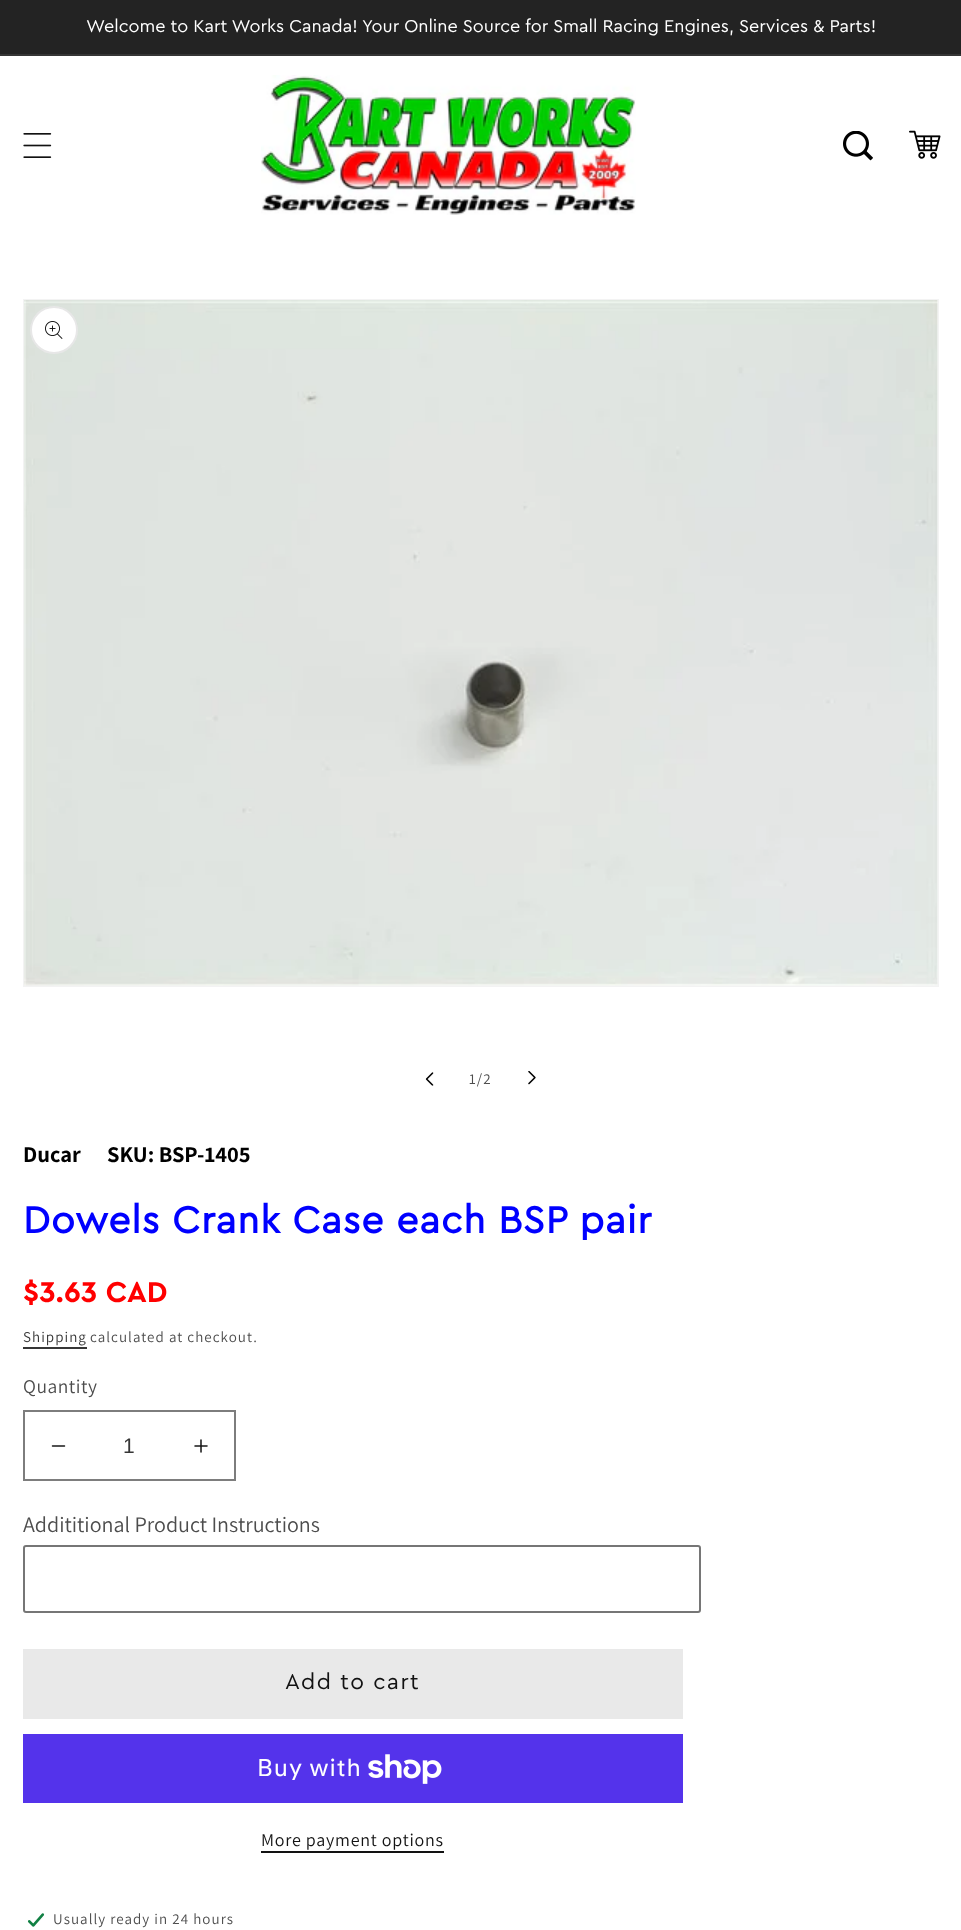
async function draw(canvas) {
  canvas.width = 961
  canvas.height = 1930
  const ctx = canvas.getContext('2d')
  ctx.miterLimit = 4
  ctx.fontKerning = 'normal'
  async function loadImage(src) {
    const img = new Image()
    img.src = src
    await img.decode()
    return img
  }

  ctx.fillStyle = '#fff'
  ctx.fillRect(0, 0, 961, 1930)
  ctx.fillStyle = '#232323'
  ctx.fillRect(0, 0, 961, 54)
  ctx.fillStyle = '#353535'
  ctx.fillRect(0, 54, 961, 2)
  ctx.font = '18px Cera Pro'
  ctx.fillStyle = '#fff'
  ctx.fillText('Welcome to Kart Works Canada! Your Online Source for Small Racing Engines, Services & Parts!', 86, 32)
  ctx.drawImage(await loadImage('image0.png'), 23, 133, 29, 25)
  ctx.drawImage(await loadImage('image1.png'), 261, 75, 375, 140)
  ctx.drawImage(await loadImage('image2.png'), 843, 131, 30, 30)
  ctx.drawImage(await loadImage('image3.png'), 909, 130, 32, 29)
  ctx.strokeStyle = '#f3f3f3'
  ctx.lineWidth = 2
  ctx.strokeRect(24, 300, 914, 686)
  ctx.drawImage(await loadImage('image4.png'), 24, 300, 914, 686)
  ctx.beginPath()
  ctx.arc(54, 330, 24, 0, 2 * Math.PI)
  ctx.fill()
  ctx.beginPath()
  ctx.arc(54, 330, 23, 0, 2 * Math.PI)
  ctx.strokeStyle = '#1212121a'
  ctx.stroke()
  ctx.drawImage(await loadImage('image5.png'), 45, 321, 18, 18)
  ctx.drawImage(await loadImage('image6.png'), 425, 1072, 9, 14)
  ctx.letterSpacing = '1.05px'
  ctx.font = '15px Assistant'
  ctx.fillStyle = '#4d4d4d'
  ctx.fillText('1/2', 469, 1084)
  ctx.drawImage(await loadImage('image7.png'), 528, 1071, 8, 14)
  ctx.letterSpacing = '0px'
  ctx.font = 'bold 22.5px Assistant'
  ctx.fillStyle = '#000'
  ctx.fillText('Ducar', 23, 1162)
  ctx.fillText('SKU: BSP-1405', 107, 1162)
  ctx.letterSpacing = '0.9px'
  ctx.font = 'bold 39px Cera Pro'
  ctx.fillStyle = '#00f'
  ctx.fillText('Dowels Crank Case each BSP pair', 23, 1233)
  ctx.letterSpacing = '0px'
  ctx.font = 'bold 30px "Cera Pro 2"'
  ctx.fillStyle = '#f00'
  ctx.fillText('$3.63 CAD', 23, 1302)
  ctx.letterSpacing = '1.05px'
  ctx.font = '15px Assistant'
  ctx.fillStyle = '#363636'
  ctx.fillText('Shipping', 23, 1342)
  ctx.fillRect(23, 1347, 64, 2)
  ctx.fillStyle = '#4d4d4d'
  ctx.fillText('calculated at checkout.', 90, 1342)
  ctx.letterSpacing = '0.5px'
  ctx.font = '19.5px Assistant'
  ctx.fillText('Quantity', 23, 1393)
  ctx.drawImage(await loadImage('image8.png'), 51, 1445, 15, 2)
  ctx.drawImage(await loadImage('image9.png'), 194, 1439, 14, 14)
  ctx.strokeStyle = '#7d7d7d'
  ctx.strokeRect(24, 1411, 211, 69)
  ctx.letterSpacing = '0px'
  ctx.font = '21px Liberation Sans'
  ctx.fillStyle = '#363636'
  ctx.fillText('1', 123, 1453)
  ctx.font = '22px Assistant'
  ctx.fillStyle = '#4d4d4d'
  ctx.fillText('Addititional Product Instructions', 23, 1532)
  ctx.beginPath()
  ctx.roundRect(24, 1546, 676, 66, 2)
  ctx.strokeStyle = '#767676'
  ctx.stroke()
  ctx.fillStyle = '#e9e9e9'
  ctx.fillRect(23, 1649, 660, 70)
  ctx.letterSpacing = '1.5px'
  ctx.font = '22.5px Cera Pro'
  ctx.fillStyle = '#121212'
  ctx.fillText('Add to cart', 285, 1689)
  ctx.fillStyle = '#5433eb'
  ctx.fillRect(23, 1734, 660, 69)
  ctx.letterSpacing = '0.9px'
  ctx.font = '24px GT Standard'
  ctx.fillStyle = '#fff'
  ctx.fillText('Buy with', 257, 1776)
  ctx.drawImage(await loadImage('image10.png'), 368, 1754, 74, 30)
  ctx.letterSpacing = '0.75px'
  ctx.font = '18px Assistant'
  ctx.fillStyle = '#121212'
  ctx.fillText('More payment options', 261, 1846)
  ctx.fillRect(261, 1851, 183, 2)
  ctx.drawImage(await loadImage('image11.png'), 27, 1913, 18, 14)
  ctx.letterSpacing = '1.05px'
  ctx.font = '15px Assistant'
  ctx.fillStyle = '#4d4d4d'
  ctx.fillText('Usually ready in 24 hours', 53, 1924)
}

draw(document.querySelector('canvas'))
